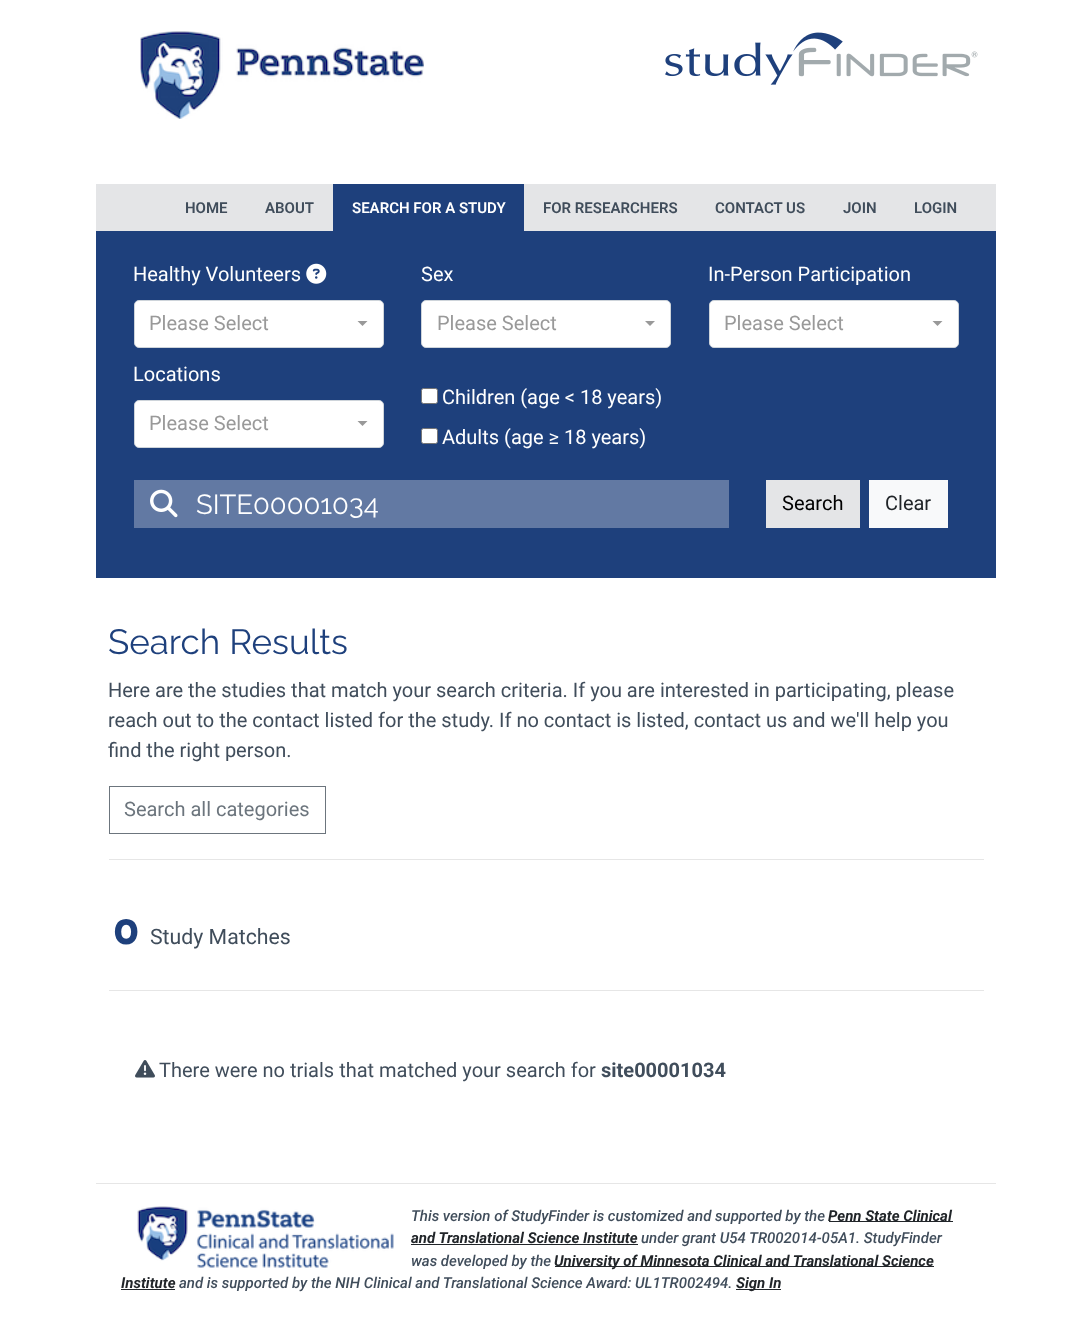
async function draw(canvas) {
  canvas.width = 1091
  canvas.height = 1339
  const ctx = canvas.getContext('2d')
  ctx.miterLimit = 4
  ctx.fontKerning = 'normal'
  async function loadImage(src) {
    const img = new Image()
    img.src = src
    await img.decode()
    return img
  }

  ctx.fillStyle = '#fff'
  ctx.fillRect(0, 0, 1091, 1339)
  ctx.drawImage(await loadImage('image0.png'), 140, 31, 284, 88)
  ctx.drawImage(await loadImage('image1.png'), 665, 32, 313, 53)
  ctx.fillStyle = '#e4e5e7'
  ctx.fillRect(96, 184, 900, 47)
  ctx.font = '600 15px Roboto'
  ctx.fillStyle = '#404d5b'
  ctx.fillText('HOME', 185, 213)
  ctx.fillText('ABOUT', 265, 213)
  ctx.fillStyle = '#1e407c'
  ctx.fillRect(333, 184, 191, 47)
  ctx.fillStyle = '#fff'
  ctx.fillText('SEARCH FOR A STUDY', 352, 213)
  ctx.fillStyle = '#404d5b'
  ctx.fillText('FOR RESEARCHERS', 543, 213)
  ctx.fillText('CONTACT US', 715, 213)
  ctx.fillText('JOIN', 843, 213)
  ctx.fillText('LOGIN', 914, 213)
  ctx.fillStyle = '#1e407c'
  ctx.fillRect(96, 231, 900, 347)
  ctx.fillStyle = '#6279a3'
  ctx.fillRect(134, 480, 595, 48)
  ctx.font = '20px Roboto'
  ctx.fillStyle = '#fff'
  ctx.fillText('Healthy Volunteers', 133, 281)
  ctx.drawImage(await loadImage('image2.png'), 306, 263, 21, 21)
  ctx.beginPath()
  ctx.roundRect(134.5, 300.5, 249, 47, 4.5)
  ctx.fill()
  ctx.strokeStyle = '#ced4da'
  ctx.stroke()
  ctx.fillStyle = '#999'
  ctx.fillText('Please Select', 149, 330)
  ctx.beginPath()
  ctx.moveTo(357.5, 321)
  ctx.lineTo(367.5, 321)
  ctx.lineTo(362.5, 326)
  ctx.closePath()
  ctx.fill()
  ctx.fillStyle = '#fff'
  ctx.fillText('Sex', 421, 281)
  ctx.beginPath()
  ctx.roundRect(421.5, 300.5, 249, 47, 4.5)
  ctx.fill()
  ctx.stroke()
  ctx.fillStyle = '#999'
  ctx.fillText('Please Select', 437, 330)
  ctx.beginPath()
  ctx.moveTo(645, 321)
  ctx.lineTo(655, 321)
  ctx.lineTo(650, 326)
  ctx.closePath()
  ctx.fill()
  ctx.fillStyle = '#fff'
  ctx.fillText('In-Person Participation', 708, 281)
  ctx.beginPath()
  ctx.roundRect(709.5, 300.5, 249, 47, 4.5)
  ctx.fill()
  ctx.stroke()
  ctx.fillStyle = '#999'
  ctx.fillText('Please Select', 724, 330)
  ctx.beginPath()
  ctx.moveTo(932.5, 321)
  ctx.lineTo(942.5, 321)
  ctx.lineTo(937.5, 326)
  ctx.closePath()
  ctx.fill()
  ctx.fillStyle = '#fff'
  ctx.fillText('Locations', 133, 381)
  ctx.beginPath()
  ctx.roundRect(134.5, 400.5, 249, 47, 4.5)
  ctx.fill()
  ctx.stroke()
  ctx.fillStyle = '#999'
  ctx.fillText('Please Select', 149, 430)
  ctx.beginPath()
  ctx.moveTo(357.5, 421)
  ctx.lineTo(367.5, 421)
  ctx.lineTo(362.5, 426)
  ctx.closePath()
  ctx.fill()
  ctx.fillStyle = '#fff'
  ctx.beginPath()
  ctx.roundRect(421.5, 388.5, 16, 15, 2)
  ctx.fill()
  ctx.strokeStyle = '#767676'
  ctx.stroke()
  ctx.fillText('Children (age < 18 years)', 442, 404)
  ctx.beginPath()
  ctx.roundRect(421.5, 428.5, 16, 15, 2)
  ctx.fill()
  ctx.stroke()
  ctx.fillText('Adults (age ≥ 18 years)', 442, 444)
  ctx.drawImage(await loadImage('image3.png'), 150, 489, 28, 29)
  ctx.font = '27.5px Raleway'
  ctx.fillText('SITE00001034', 196, 514)
  ctx.fillStyle = '#e4e5e7'
  ctx.fillRect(766, 480, 94, 48)
  ctx.font = '20px Roboto'
  ctx.fillStyle = '#000'
  ctx.fillText('Search', 782, 510)
  ctx.fillStyle = '#f8f9fa'
  ctx.fillRect(869, 480, 79, 48)
  ctx.fillStyle = '#212529'
  ctx.fillText('Clear', 885, 510)
  ctx.font = '35px Raleway'
  ctx.fillStyle = '#1e407c'
  ctx.fillText('Search Results', 108, 654)
  ctx.font = '20px Roboto'
  ctx.fillStyle = '#404d5b'
  ctx.fillText('Here are the studies that match your search criteria. If you are interested in participating, please', 108, 697)
  ctx.fillText('reach out to the contact listed for the study. If no contact is listed, contact us and we\'ll help you', 108, 727)
  ctx.fillText('find the right person.', 108, 757)
  ctx.strokeStyle = '#6c757d'
  ctx.strokeRect(109.5, 786.5, 216, 47)
  ctx.fillStyle = '#6c757d'
  ctx.fillText('Search all categories', 124, 816)
  ctx.fillStyle = '#e6e6e6'
  ctx.fillRect(109, 859, 875, 1)
  ctx.font = 'bold 35px Prompt'
  ctx.fillStyle = '#1e407c'
  ctx.fillText('0', 114, 944)
  ctx.font = '21.25px Roboto'
  ctx.fillStyle = '#404d5b'
  ctx.fillText('Study Matches', 150, 944)
  ctx.fillStyle = '#e6e6e6'
  ctx.fillRect(109, 990, 875, 1)
  ctx.drawImage(await loadImage('image4.png'), 135, 1060, 20, 18)
  ctx.font = '20px Roboto'
  ctx.fillStyle = '#404d5b'
  ctx.fillText('There were no trials that matched your search for', 159, 1077)
  ctx.font = 'bold 20px Roboto'
  ctx.fillText('site00001034', 601, 1077)
  ctx.fillStyle = '#e6e6e6'
  ctx.fillRect(96, 1183, 900, 1)
  ctx.drawImage(await loadImage('image5.png'), 137, 1206, 257, 62)
  ctx.font = 'italic 500 15px Roboto'
  ctx.fillStyle = '#404d5b'
  ctx.fillText('This version of StudyFinder is customized and supported by the', 411, 1221)
  ctx.fillStyle = '#212529'
  ctx.fillRect(829, 1221, 124, 1)
  ctx.font = 'italic bold 15px Roboto'
  ctx.fillText('Penn State Clinical', 828, 1221)
  ctx.fillText('and Translational Science Institute', 411, 1243)
  ctx.fillRect(411, 1244, 227, 1)
  ctx.font = 'italic 500 15px Roboto'
  ctx.fillStyle = '#404d5b'
  ctx.fillText('under grant U54 TR002014-05A1. StudyFinder', 641, 1243)
  ctx.fillText('was developed by the', 411, 1266)
  ctx.fillStyle = '#212529'
  ctx.fillRect(555, 1266, 379, 1)
  ctx.font = 'italic bold 15px Roboto'
  ctx.fillText('University of Minnesota Clinical and Translational Science', 554, 1266)
  ctx.fillText('Institute', 121, 1288)
  ctx.fillRect(121, 1289, 54, 1)
  ctx.font = 'italic 500 15px Roboto'
  ctx.fillStyle = '#404d5b'
  ctx.fillText('and is supported by the NIH Clinical and Translational Science Award: UL1TR002494.', 179, 1288)
  ctx.fillStyle = '#212529'
  ctx.fillRect(736, 1289, 45, 1)
  ctx.font = 'italic bold 15px Roboto'
  ctx.fillText('Sign In', 736, 1288)
}

draw(document.querySelector('canvas'))
